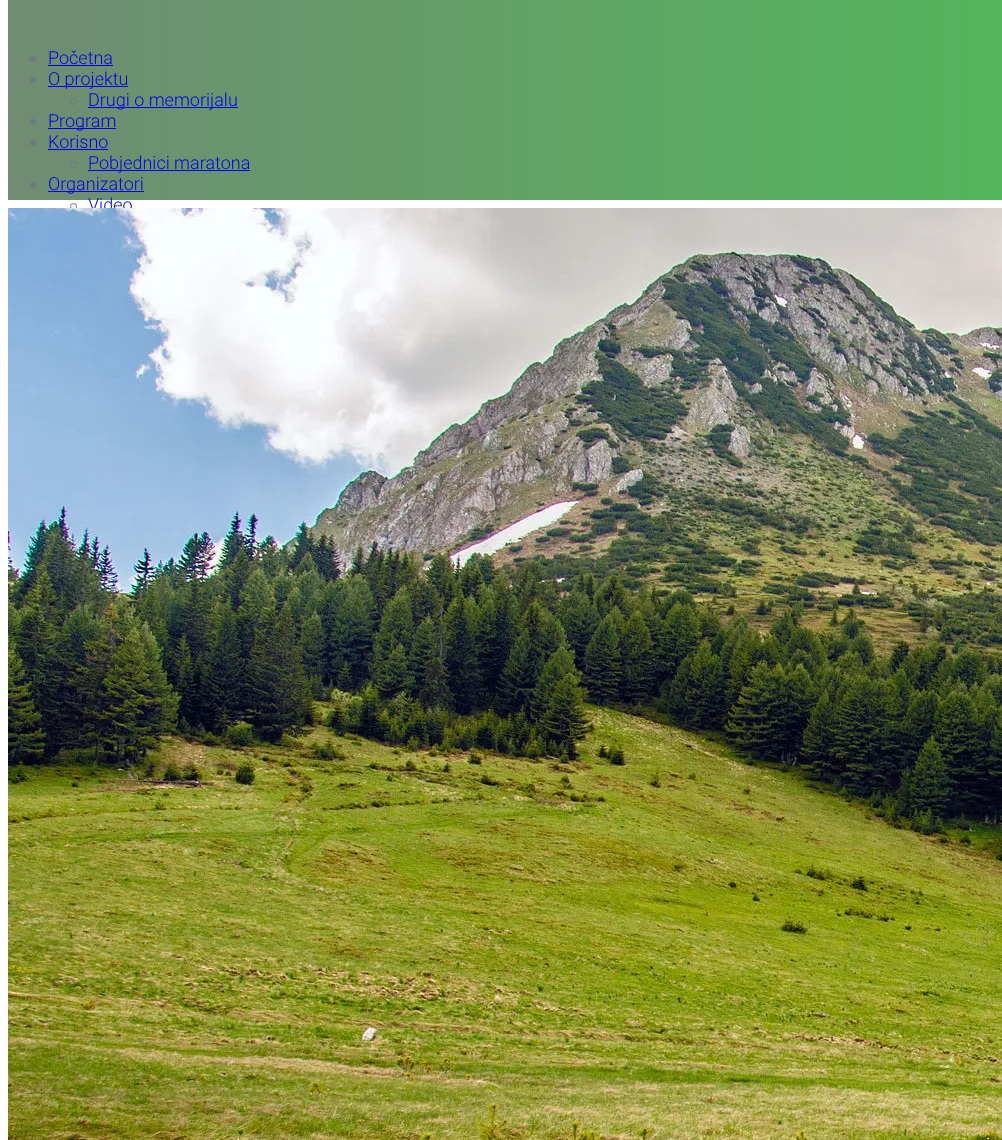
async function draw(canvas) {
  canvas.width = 1002
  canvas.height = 1140
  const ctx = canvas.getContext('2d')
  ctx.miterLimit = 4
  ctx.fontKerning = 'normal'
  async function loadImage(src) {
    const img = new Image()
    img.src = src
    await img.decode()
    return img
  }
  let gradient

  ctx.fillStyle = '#fff'
  ctx.fillRect(0, 0, 1002, 1140)
  gradient = ctx.createLinearGradient(8, 100, 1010, 100)
  gradient.addColorStop(0, '#708c72')
  gradient.addColorStop(1, '#53b65b')
  ctx.fillStyle = gradient
  ctx.fillRect(8, 0, 994, 200)
  ctx.fillStyle = '#6d7a83'
  ctx.beginPath()
  ctx.arc(33, 59, 3, 0, 2 * Math.PI)
  ctx.fill()
  ctx.font = '300 18px Roboto'
  ctx.fillStyle = '#00e'
  ctx.fillText('Početna', 48, 64)
  ctx.fillRect(48, 65, 65, 1)
  ctx.fillStyle = '#6d7a83'
  ctx.beginPath()
  ctx.arc(33, 80, 3, 0, 2 * Math.PI)
  ctx.fill()
  ctx.fillStyle = '#00e'
  ctx.fillRect(48, 86, 80, 1)
  ctx.fillText('O projektu', 48, 85)
  ctx.beginPath()
  ctx.arc(73.5, 101.5, 3, 0, 2 * Math.PI)
  ctx.strokeStyle = '#6d7a83'
  ctx.stroke()
  ctx.fillRect(88, 107, 150, 1)
  ctx.fillText('Drugi o memorijalu', 88, 106)
  ctx.fillStyle = '#6d7a83'
  ctx.beginPath()
  ctx.arc(33, 122, 3, 0, 2 * Math.PI)
  ctx.fill()
  ctx.fillStyle = '#00e'
  ctx.fillRect(48, 128, 68, 1)
  ctx.fillText('Program', 48, 127)
  ctx.fillStyle = '#6d7a83'
  ctx.beginPath()
  ctx.arc(33, 143, 3, 0, 2 * Math.PI)
  ctx.fill()
  ctx.fillStyle = '#00e'
  ctx.fillText('Korisno', 48, 148)
  ctx.fillRect(48, 149, 60, 1)
  ctx.beginPath()
  ctx.arc(73.5, 164.5, 3, 0, 2 * Math.PI)
  ctx.stroke()
  ctx.fillRect(88, 170, 162, 1)
  ctx.fillText('Pobjednici maratona', 88, 169)
  ctx.fillStyle = '#6d7a83'
  ctx.beginPath()
  ctx.arc(33, 185, 3, 0, 2 * Math.PI)
  ctx.fill()
  ctx.fillStyle = '#00e'
  ctx.fillRect(48, 191, 96, 1)
  ctx.fillText('Organizatori', 48, 190)
  ctx.beginPath()
  ctx.arc(73.5, 206.5, 3, 0, 2 * Math.PI)
  ctx.stroke()
  ctx.fillText('Video', 88, 211)
  ctx.drawImage(await loadImage('image0.png'), 8, 208, 994, 932)
}

draw(document.querySelector('canvas'))
